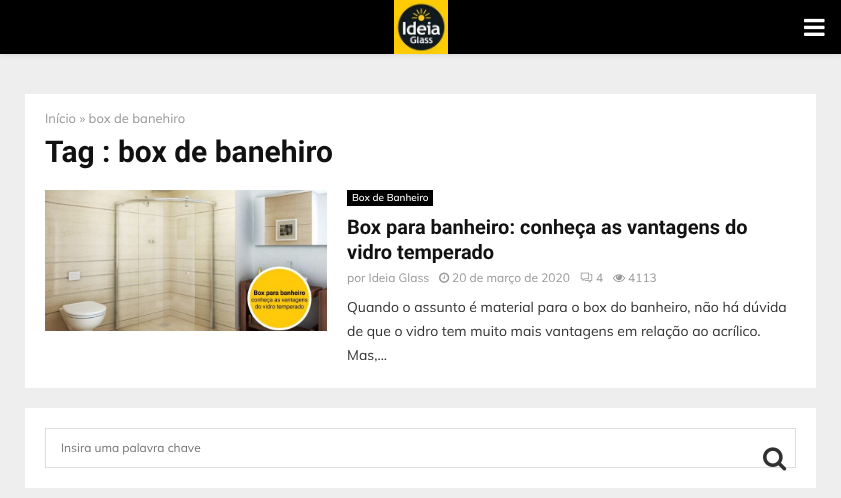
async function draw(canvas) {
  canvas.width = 841
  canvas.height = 498
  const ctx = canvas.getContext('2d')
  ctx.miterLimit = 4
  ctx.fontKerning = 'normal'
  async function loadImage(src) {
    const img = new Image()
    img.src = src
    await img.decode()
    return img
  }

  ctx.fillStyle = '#eee'
  ctx.fillRect(0, 0, 841, 498)
  ctx.fillStyle = '#bebebe75'
  ctx.filter = 'blur(2.5px)'
  ctx.beginPath()
  ctx.rect(0, 1, 841, 54)
  ctx.fill()
  ctx.filter = 'none'
  ctx.fillStyle = '#000'
  ctx.fillRect(0, 0, 841, 54)
  ctx.drawImage(await loadImage('image0.png'), 394, 0, 54, 54)
  ctx.drawImage(await loadImage('image1.png'), 804, 18, 21, 18)
  ctx.fillStyle = '#fff'
  ctx.fillRect(25, 94, 791, 294)
  ctx.font = '13px Muli'
  ctx.fillStyle = '#999'
  ctx.fillText('Início » box de banehiro', 45, 123)
  ctx.font = 'bold 30px Roboto'
  ctx.fillStyle = '#111'
  ctx.fillText('Tag : box de banehiro', 45, 162)
  ctx.drawImage(await loadImage('image2.png'), 45, 190, 282, 141)
  ctx.fillStyle = '#000'
  ctx.fillRect(347, 190, 86, 16)
  ctx.font = '500 10px Muli'
  ctx.fillStyle = '#fff'
  ctx.fillText('Box de Banheiro', 352, 201)
  ctx.font = 'bold 20px Roboto'
  ctx.fillStyle = '#111'
  ctx.fillText('Box para banheiro: conheça as vantagens do', 347, 234)
  ctx.fillText('vidro temperado', 347, 259)
  ctx.font = '12px Muli'
  ctx.fillStyle = '#999'
  ctx.fillText('por Ideia Glass', 347, 282)
  ctx.drawImage(await loadImage('image3.png'), 439, 272, 11, 11)
  ctx.fillText('20 de março de 2020', 452, 282)
  ctx.drawImage(await loadImage('image4.png'), 580, 272, 13, 11)
  ctx.fillText('4', 596, 282)
  ctx.drawImage(await loadImage('image5.png'), 613, 274, 12, 8)
  ctx.fillText('4113', 628, 282)
  ctx.font = '14px Muli'
  ctx.fillStyle = '#323232'
  ctx.fillText('Quando o assunto é material para o box do banheiro, não há dúvida', 347, 312)
  ctx.fillText('de que o vidro tem muito mais vantagens em relação ao acrílico.', 347, 336)
  ctx.fillText('Mas,...', 347, 360)
  ctx.fillStyle = '#fff'
  ctx.fillRect(25, 408, 791, 80)
  ctx.strokeStyle = '#dedede'
  ctx.strokeRect(45.5, 428.5, 750, 39)
  ctx.font = '12px Muli'
  ctx.fillStyle = '#757575'
  ctx.fillText('Insira uma palavra chave', 61, 452)
  ctx.drawImage(await loadImage('image6.png'), 763, 447, 24, 24)
}

draw(document.querySelector('canvas'))
